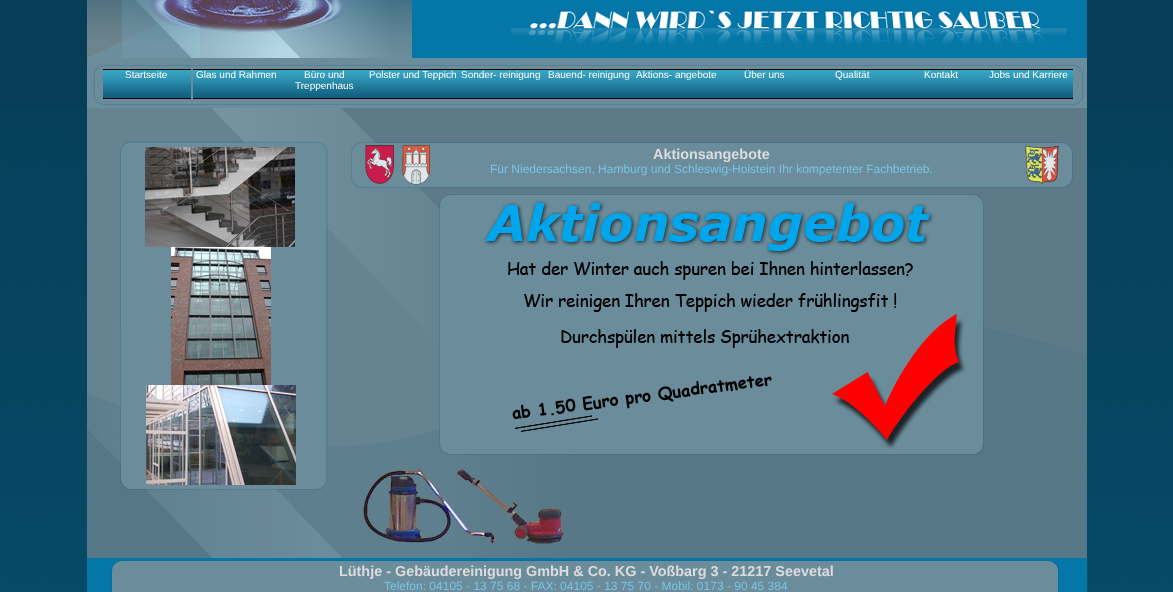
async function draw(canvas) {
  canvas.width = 1173
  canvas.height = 592
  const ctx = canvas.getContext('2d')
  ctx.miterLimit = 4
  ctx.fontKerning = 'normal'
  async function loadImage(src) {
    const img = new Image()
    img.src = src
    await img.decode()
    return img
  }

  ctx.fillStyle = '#fff'
  ctx.fillRect(0, 0, 1173, 592)
  ctx.drawImage(await loadImage('image0.png'), 0, 0, 1173, 592)
  ctx.fillStyle = '#6a8c9b'
  ctx.fillRect(87, 58, 1000, 50)
  ctx.drawImage(await loadImage('image1.png'), 87, 0, 1000, 58)
  ctx.drawImage(await loadImage('image2.png'), 93, 65, 991, 40)
  ctx.drawImage(await loadImage('image3.png'), 103, 69, 88, 30)
  ctx.font = '10px Liberation Sans'
  ctx.fillStyle = '#fff'
  ctx.fillText('Startseite', 125, 78)
  ctx.drawImage(await loadImage('image3.png'), 193, 69, 88, 30)
  ctx.fillText('Glas und Rahmen', 196, 78)
  ctx.drawImage(await loadImage('image3.png'), 281, 69, 88, 30)
  ctx.fillText('Büro und', 304, 78)
  ctx.fillText('Treppenhaus', 295, 89)
  ctx.drawImage(await loadImage('image3.png'), 369, 69, 88, 30)
  ctx.fillText('Polster und Teppich', 369, 78)
  ctx.drawImage(await loadImage('image3.png'), 457, 69, 88, 30)
  ctx.fillText('Sonder- reinigung', 461, 78)
  ctx.drawImage(await loadImage('image3.png'), 545, 69, 88, 30)
  ctx.fillText('Bauend- reinigung', 548, 78)
  ctx.drawImage(await loadImage('image3.png'), 633, 69, 88, 30)
  ctx.fillText('Aktions- angebote', 636, 78)
  ctx.drawImage(await loadImage('image3.png'), 721, 69, 88, 30)
  ctx.fillText('Über uns', 744, 78)
  ctx.drawImage(await loadImage('image3.png'), 809, 69, 88, 30)
  ctx.fillText('Qualität', 835, 78)
  ctx.drawImage(await loadImage('image3.png'), 897, 69, 88, 30)
  ctx.fillText('Kontakt', 924, 78)
  ctx.drawImage(await loadImage('image3.png'), 985, 69, 88, 30)
  ctx.fillText('Jobs und Karriere', 989, 78)
  ctx.drawImage(await loadImage('image4.png'), 87, 108, 1000, 450)
  ctx.drawImage(await loadImage('image5.png'), 120, 141, 208, 349)
  ctx.drawImage(await loadImage('image6.png'), 351, 142, 722, 46)
  ctx.font = 'bold 14.4px Liberation Sans'
  ctx.fillStyle = '#dcdcdc'
  ctx.fillText('Aktionsangebote', 653, 159)
  ctx.font = '12px Liberation Sans'
  ctx.fillStyle = '#79c4e7'
  ctx.fillText('Für Niedersachsen, Hamburg und Schleswig-Holstein Ihr kompetenter Fachbetrieb.', 490, 173)
  ctx.drawImage(await loadImage('image7.png'), 439, 194, 545, 261)
  ctx.fillStyle = '#0477a8'
  ctx.fillRect(87, 558, 1000, 34)
  ctx.drawImage(await loadImage('image8.png'), 111, 560, 948, 32)
  ctx.font = 'bold 14.4px Liberation Sans'
  ctx.fillStyle = '#dcdcdc'
  ctx.fillText('Lüthje - Gebäudereinigung GmbH & Co. KG - Voßbarg 3 - 21217 Seevetal', 339, 576)
  ctx.font = '12px Liberation Sans'
  ctx.fillStyle = '#79c4e7'
  ctx.fillText('Telefon: 04105 - 13 75 68 - FAX: 04105 - 13 75 70 - Mobil: 0173 - 90 45 384', 384, 590)
}

draw(document.querySelector('canvas'))
